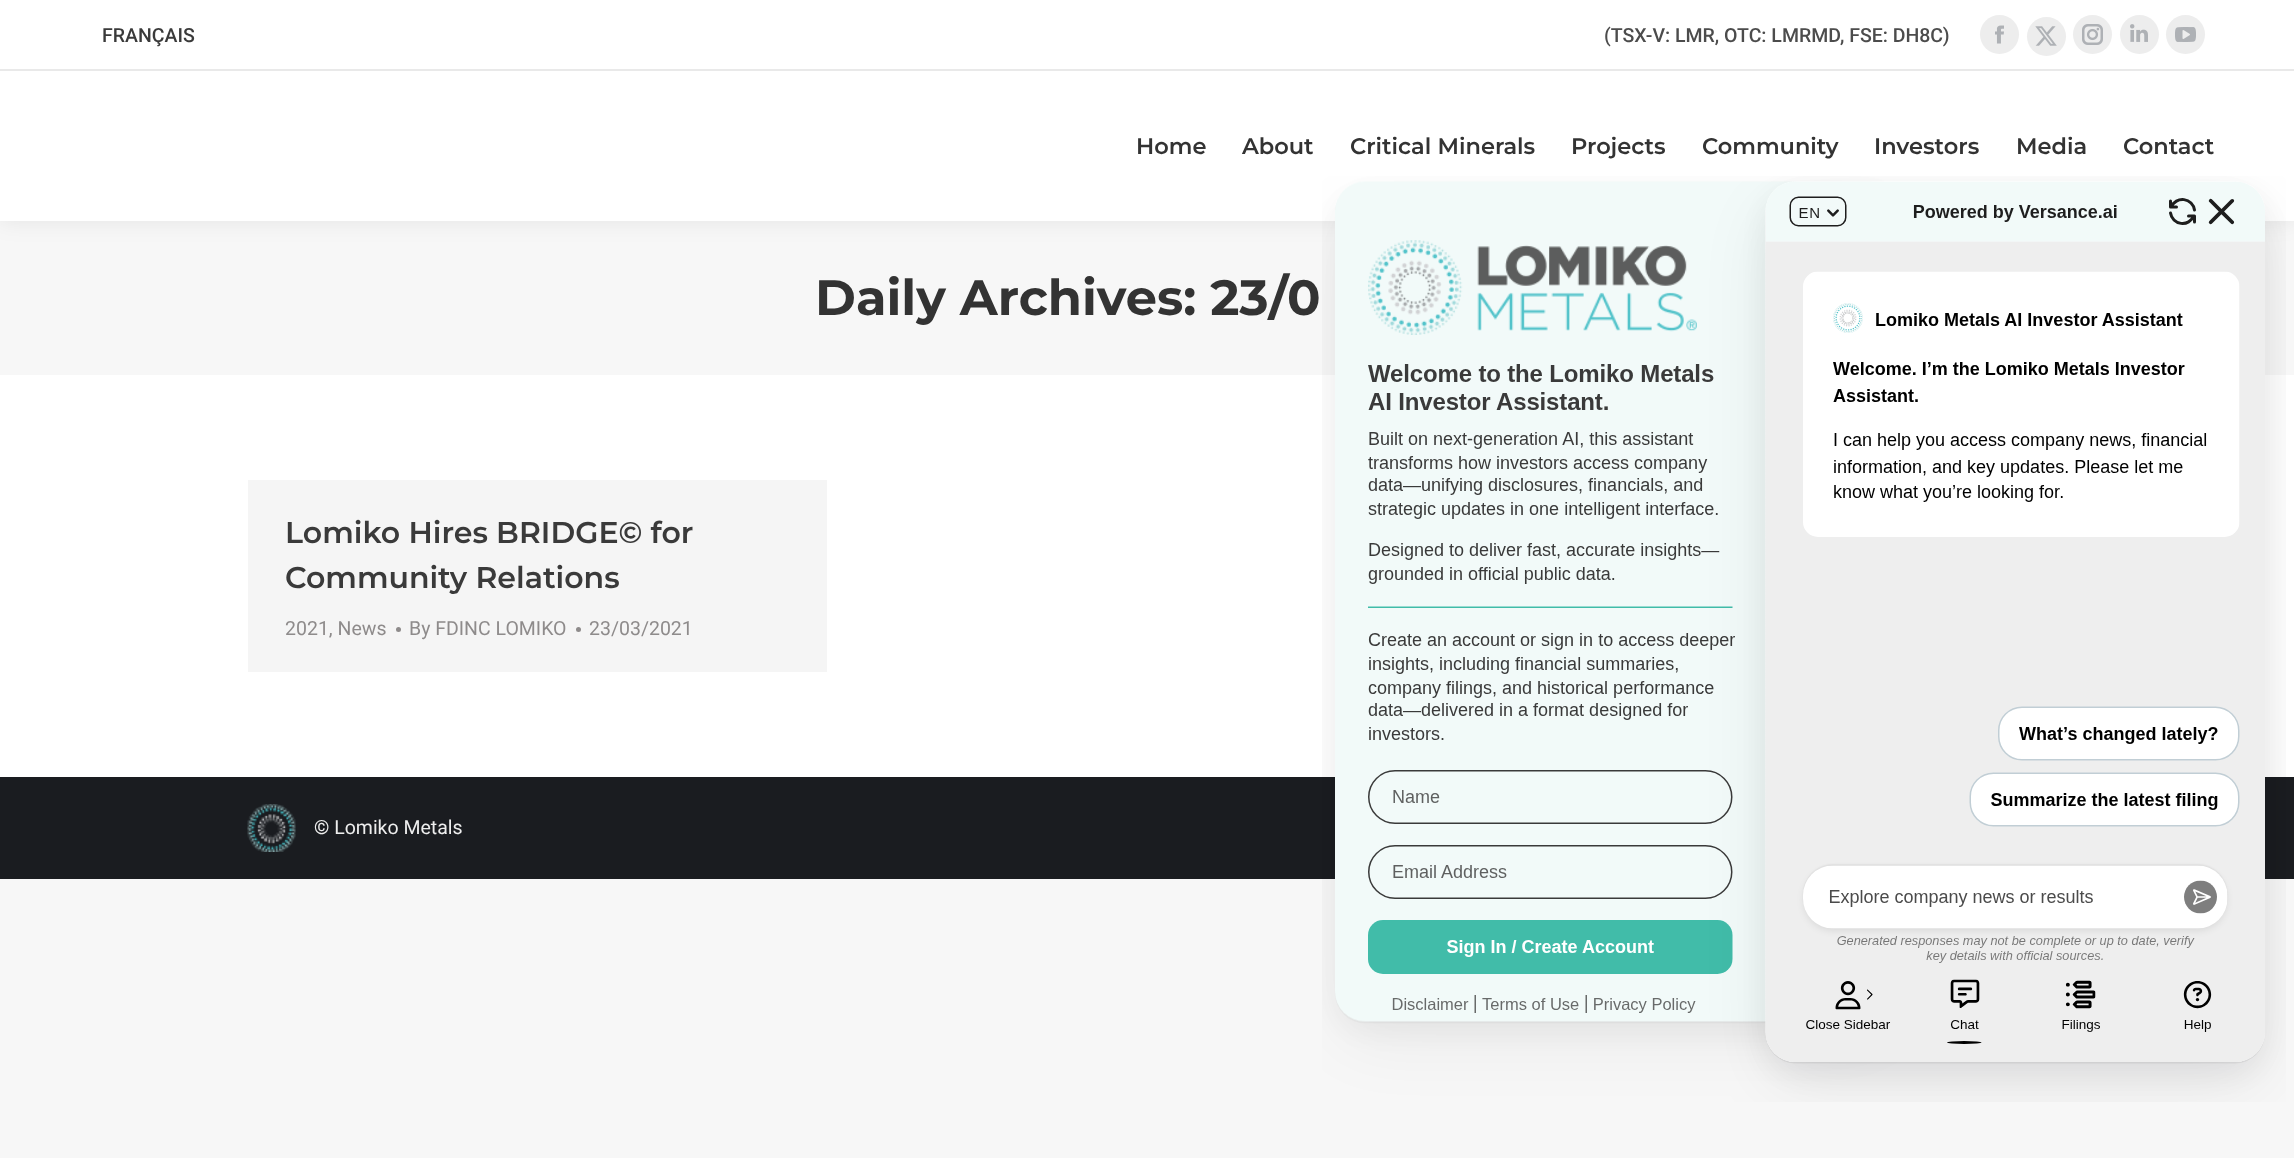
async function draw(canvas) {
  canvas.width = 2294
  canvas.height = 1158
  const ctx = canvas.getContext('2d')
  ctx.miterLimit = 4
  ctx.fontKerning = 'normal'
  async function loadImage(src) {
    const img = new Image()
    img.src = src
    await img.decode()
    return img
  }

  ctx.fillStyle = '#f7f7f7'
  ctx.fillRect(0, 0, 2294, 1158)
  ctx.fillStyle = '#fff'
  ctx.fillRect(0, 375, 2294, 402)
  ctx.fillStyle = '#00000012'
  ctx.filter = 'blur(11px)'
  ctx.beginPath()
  ctx.rect(-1, -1, 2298, 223)
  ctx.fill()
  ctx.filter = 'none'
  ctx.fillStyle = '#fff'
  ctx.fillRect(0, 0, 2294, 221)
  ctx.font = '500 19.5px Roboto'
  ctx.fillStyle = '#3a3a3a'
  ctx.fillText('FRANÇAIS', 102, 42)
  ctx.fillStyle = '#4c4c4c'
  ctx.fillText('(TSX-V: LMR, OTC: LMRMD, FSE: DH8C)', 1604, 42)
  ctx.fillStyle = '#ededed'
  ctx.beginPath()
  ctx.arc(1999.5, 34.5, 19.5, 0, 2 * Math.PI)
  ctx.fill()
  ctx.drawImage(await loadImage('image0.png'), 1995, 25, 9, 19)
  ctx.beginPath()
  ctx.arc(2046.5, 36.5, 19.5, 0, 2 * Math.PI)
  ctx.fill()
  ctx.drawImage(await loadImage('image1.png'), 2035, 26, 22, 20)
  ctx.beginPath()
  ctx.arc(2092.5, 34.5, 19.5, 0, 2 * Math.PI)
  ctx.fill()
  ctx.drawImage(await loadImage('image2.png'), 2082, 24, 21, 21)
  ctx.beginPath()
  ctx.arc(2139.5, 34.5, 19.5, 0, 2 * Math.PI)
  ctx.fill()
  ctx.drawImage(await loadImage('image3.png'), 2130, 24, 18, 18)
  ctx.beginPath()
  ctx.arc(2185.5, 34.5, 19.5, 0, 2 * Math.PI)
  ctx.fill()
  ctx.drawImage(await loadImage('image4.png'), 2175, 27, 21, 15)
  ctx.fillStyle = '#e9e9e9'
  ctx.fillRect(0, 69, 2294, 2)
  ctx.font = '100 22.5px "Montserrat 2"'
  ctx.fillStyle = '#333'
  ctx.fillText('Home', 1136, 154)
  ctx.fillText('About', 1242, 154)
  ctx.fillText('Critical Minerals', 1350, 154)
  ctx.fillText('Projects', 1571, 154)
  ctx.fillText('Community', 1702, 154)
  ctx.fillText('Investors', 1874, 154)
  ctx.fillText('Media', 2016, 154)
  ctx.fillText('Contact', 2123, 154)
  ctx.font = '100 49.5px Montserrat'
  ctx.fillText('Daily Archives: 23/0', 815, 315)
  ctx.fillStyle = '#f5f5f5'
  ctx.fillRect(248, 480, 579, 192)
  ctx.font = '100 30px "Montserrat 2"'
  ctx.fillStyle = '#3a3a3a'
  ctx.fillText('Lomiko Hires BRIDGE© for', 285, 543)
  ctx.fillText('Community Relations', 285, 588)
  ctx.font = '19.5px Roboto'
  ctx.fillStyle = '#8e8b8b'
  ctx.fillText('2021, News', 285, 635)
  ctx.beginPath()
  ctx.arc(398.5, 629.5, 2.5, 0, 2 * Math.PI)
  ctx.fill()
  ctx.fillText('By FDINC LOMIKO', 409, 635)
  ctx.beginPath()
  ctx.arc(578.5, 629.5, 2.5, 0, 2 * Math.PI)
  ctx.fill()
  ctx.fillText('23/03/2021', 589, 635)
  ctx.fillStyle = '#1a1c20'
  ctx.fillRect(0, 777, 2294, 102)
  ctx.drawImage(await loadImage('image5.png'), 247, 804, 49, 48)
  ctx.fillStyle = '#eee'
  ctx.fillText('© Lomiko Metals', 314, 834)
  ctx.drawImage(await loadImage('image6.png'), 1322, 176, 964, 926)
}

draw(document.querySelector('canvas'))
